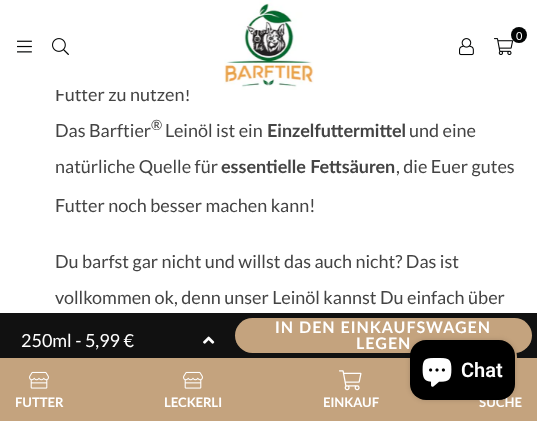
async function draw(canvas) {
  canvas.width = 537
  canvas.height = 421
  const ctx = canvas.getContext('2d')
  ctx.miterLimit = 4
  ctx.fontKerning = 'normal'
  async function loadImage(src) {
    const img = new Image()
    img.src = src
    await img.decode()
    return img
  }

  ctx.fillStyle = '#fff'
  ctx.fillRect(0, 0, 537, 421)
  ctx.font = '18px Lato'
  ctx.fillStyle = '#444'
  ctx.fillText('Futter zu nutzen!', 55, 101)
  ctx.fillStyle = '#fff'
  ctx.fillRect(56, 88, 133, 2)
  ctx.drawImage(await loadImage('image0.png'), 224, 0, 90, 90)
  ctx.drawImage(await loadImage('image1.png'), 494, 38, 20, 17)
  ctx.fillStyle = '#030505'
  ctx.beginPath()
  ctx.arc(519, 35, 8, 0, 2 * Math.PI)
  ctx.fill()
  ctx.font = '11px Lato'
  ctx.fillStyle = '#fff'
  ctx.fillText('0', 516, 40)
  ctx.drawImage(await loadImage('image2.png'), 459, 38, 15, 18)
  ctx.drawImage(await loadImage('image3.png'), 17, 40, 15, 13)
  ctx.drawImage(await loadImage('image4.png'), 52, 38, 17, 17)
  ctx.font = '18px Lato'
  ctx.fillStyle = '#444'
  ctx.fillText('Das Barftier', 55, 137)
  ctx.font = '14px Lato'
  ctx.fillText('®', 151, 130)
  ctx.font = '18px Lato'
  ctx.fillText('Leinöl ist ein', 165, 137)
  ctx.font = 'bold 18px Lato'
  ctx.fillText('Einzelfuttermittel', 267, 137)
  ctx.font = '18px Lato'
  ctx.fillText('und eine', 409, 137)
  ctx.fillText('natürliche Quelle für', 55, 173)
  ctx.font = 'bold 18px Lato'
  ctx.fillText('essentielle Fettsäuren', 221, 173)
  ctx.font = '18px Lato'
  ctx.fillText(', die Euer gutes', 396, 173)
  ctx.fillText('Futter noch besser machen kann!', 55, 212)
  ctx.fillText('Du barfst gar nicht und willst das auch nicht? Das ist', 55, 268)
  ctx.fillText('vollkommen ok, denn unser Leinöl kannst Du einfach über', 55, 304)
  ctx.fillStyle = '#111'
  ctx.fillRect(0, 313, 537, 45)
  ctx.fillStyle = '#fff'
  ctx.fillText('250ml - 5,99 €', 21, 347)
  ctx.drawImage(await loadImage('image5.png'), 203, 336, 12, 8)
  ctx.fillStyle = '#c4a37e'
  ctx.beginPath()
  ctx.roundRect(235, 318, 297, 35, 17.5)
  ctx.fill()
  ctx.letterSpacing = '1px'
  ctx.font = 'bold 16px Lato'
  ctx.fillStyle = '#fff'
  ctx.fillText('IN DEN EINKAUFSWAGEN', 275, 333)
  ctx.fillText('LEGEN', 356, 349)
  ctx.fillStyle = '#c4a37e'
  ctx.fillRect(0, 358, 537, 63)
  ctx.drawImage(await loadImage('image6.png'), 29, 371, 20, 18)
  ctx.letterSpacing = '0px'
  ctx.font = 'bold 13px Lato'
  ctx.fillStyle = '#fff'
  ctx.fillText('FUTTER', 15, 407)
  ctx.drawImage(await loadImage('image6.png'), 183, 371, 20, 18)
  ctx.fillText('LECKERLI', 164, 407)
  ctx.drawImage(await loadImage('image7.png'), 339, 370, 23, 21)
  ctx.fillText('EINKAUF', 323, 407)
  ctx.fillText('SUCHE', 479, 407)
  ctx.fillStyle = '#c4a37e'
  ctx.beginPath()
  ctx.arc(493, 357, 24, 0, 2 * Math.PI)
  ctx.fill()
  ctx.fillStyle = '#00000026'
  ctx.filter = 'blur(2.5px)'
  ctx.beginPath()
  ctx.roundRect(410, 340, 105, 60, 16)
  ctx.fill()
  ctx.filter = 'none'
  ctx.fillStyle = '#000'
  ctx.beginPath()
  ctx.roundRect(410, 340, 105, 60, 16)
  ctx.fill()
  ctx.drawImage(await loadImage('image8.png'), 422, 358, 30, 29)
  ctx.font = '600 20px Roboto'
  ctx.fillStyle = '#fff'
  ctx.fillText('Chat', 461, 377)
}

draw(document.querySelector('canvas'))
